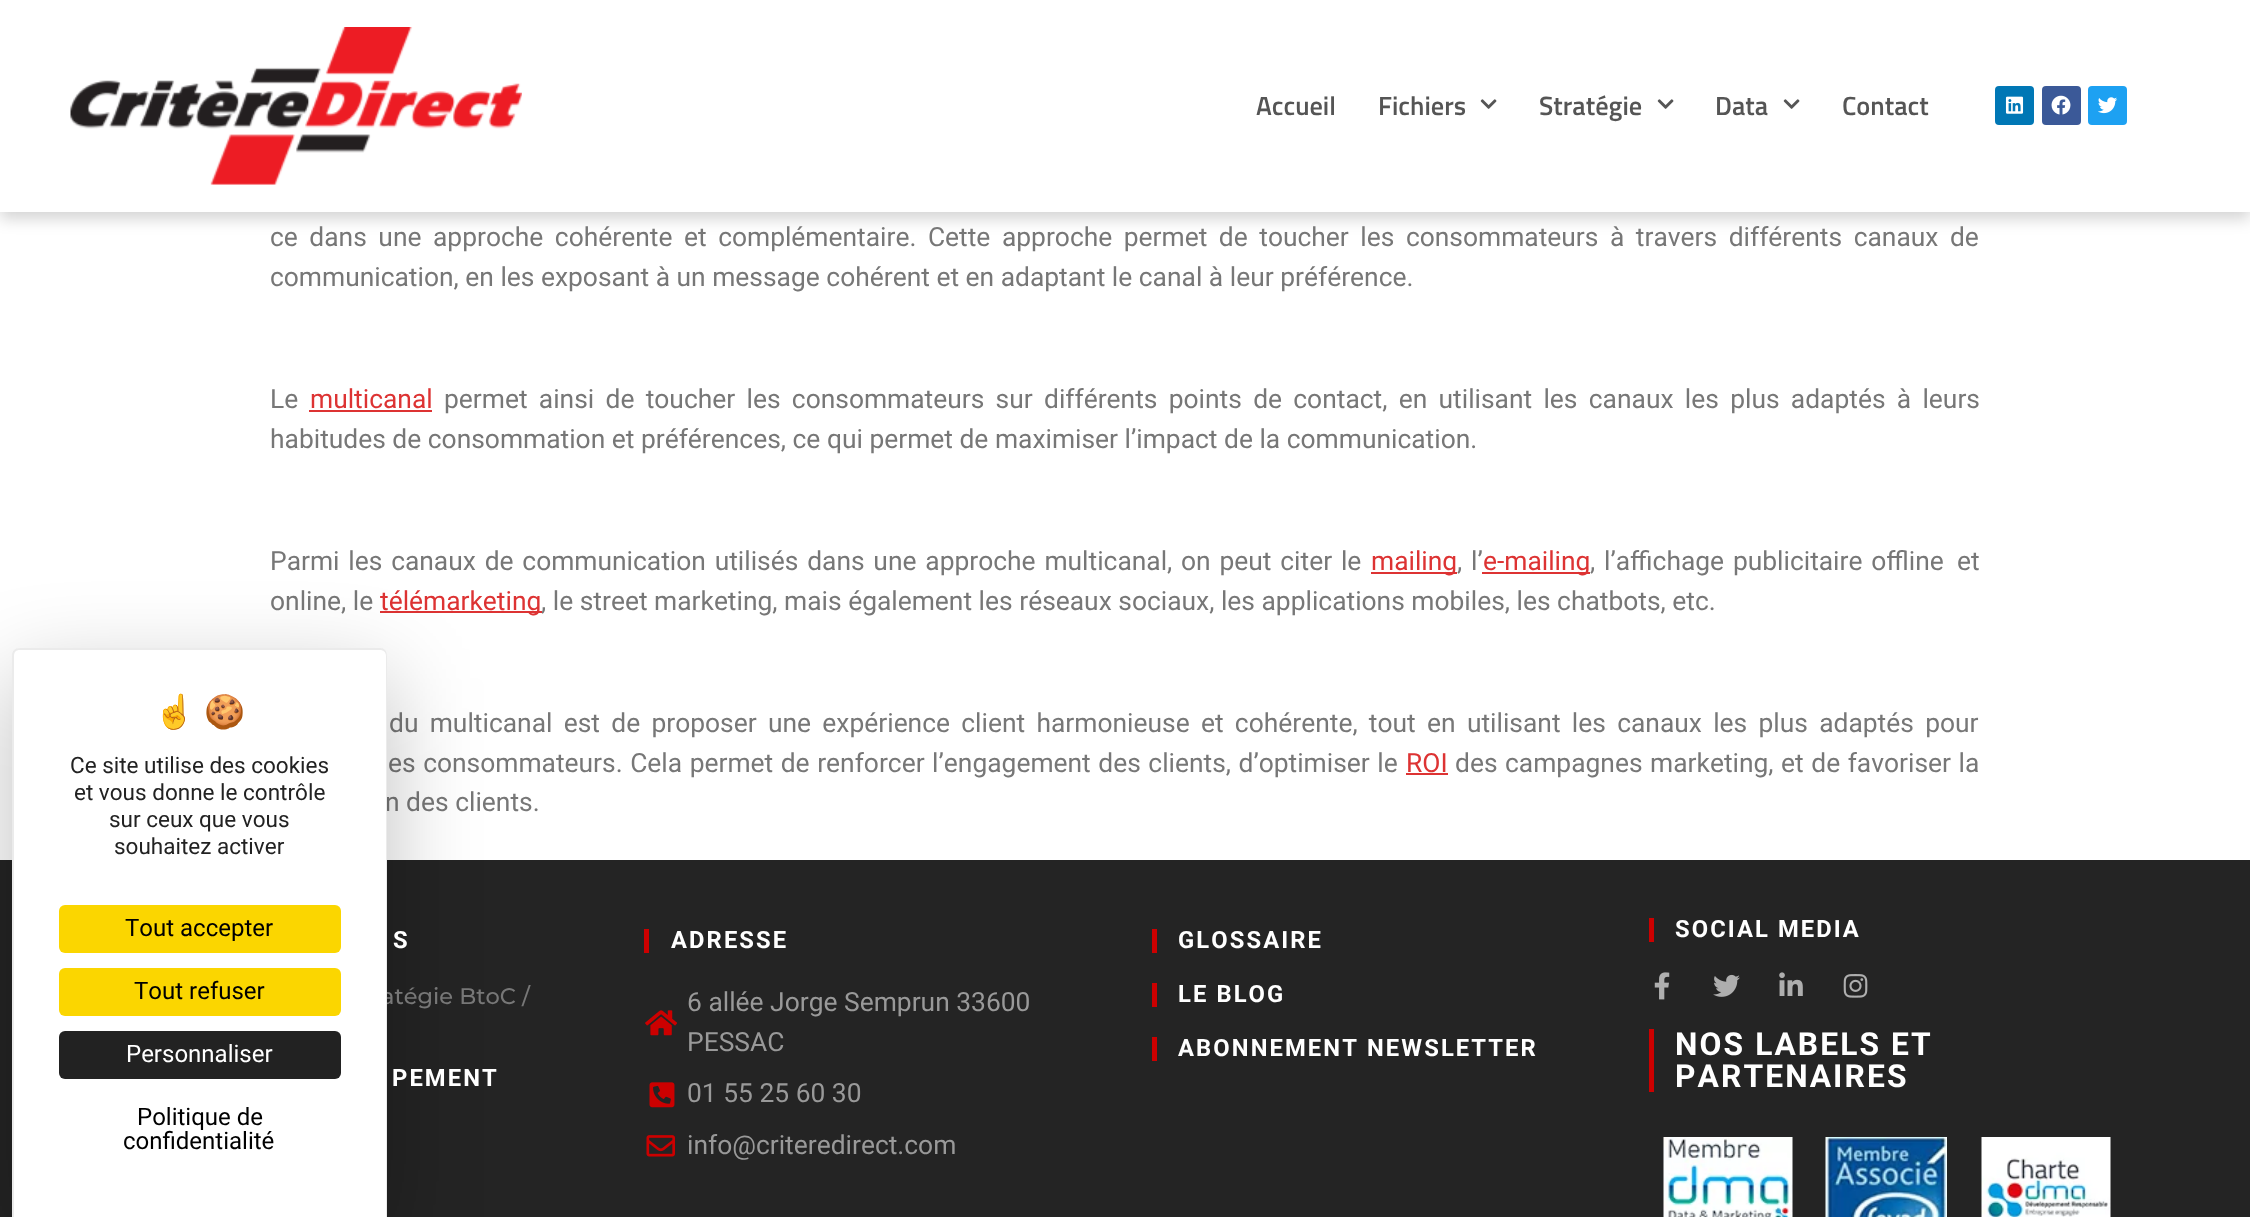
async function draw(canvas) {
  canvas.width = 2250
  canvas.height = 1217
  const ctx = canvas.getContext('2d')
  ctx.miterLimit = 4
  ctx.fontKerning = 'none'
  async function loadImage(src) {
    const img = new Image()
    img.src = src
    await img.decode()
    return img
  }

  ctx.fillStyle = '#fff'
  ctx.fillRect(0, 0, 2250, 1217)
  ctx.fillStyle = '#0000002b'
  ctx.filter = 'blur(7.5px)'
  ctx.beginPath()
  ctx.rect(0, 8, 2250, 211)
  ctx.fill()
  ctx.filter = 'none'
  ctx.fillStyle = '#fff'
  ctx.fillRect(0, 0, 2250, 212)
  ctx.drawImage(await loadImage('image0.png'), 70, 27, 452, 158)
  ctx.font = '600 26.4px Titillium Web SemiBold'
  ctx.fillStyle = '#555'
  ctx.fillText('Accueil', 1256, 115)
  ctx.fillText('Fichiers', 1378, 115)
  ctx.drawImage(await loadImage('image1.png'), 1480, 99, 17, 10)
  ctx.fillText('Stratégie', 1539, 115)
  ctx.drawImage(await loadImage('image1.png'), 1657, 99, 17, 10)
  ctx.fillText('Data', 1715, 115)
  ctx.drawImage(await loadImage('image1.png'), 1783, 99, 17, 10)
  ctx.fillText('Contact', 1842, 115)
  ctx.fillStyle = '#0077b5'
  ctx.beginPath()
  ctx.roundRect(1995, 86, 39, 39, 4)
  ctx.fill()
  ctx.drawImage(await loadImage('image2.png'), 2005, 96, 19, 18)
  ctx.fillStyle = '#3b5998'
  ctx.beginPath()
  ctx.roundRect(2042, 86, 39, 39, 4)
  ctx.fill()
  ctx.drawImage(await loadImage('image3.png'), 2051, 95, 20, 20)
  ctx.fillStyle = '#1da1f2'
  ctx.beginPath()
  ctx.roundRect(2088, 86, 39, 39, 4)
  ctx.fill()
  ctx.drawImage(await loadImage('image4.png'), 2098, 97, 20, 17)
  ctx.wordSpacing = '5px'
  ctx.font = '26.4px Roboto'
  ctx.fillStyle = '#777'
  ctx.fillText('ce dans une approche cohérente et complémentaire. Cette approche permet de toucher les consommateurs à travers différents canaux de', 270, 246)
  ctx.wordSpacing = '0px'
  ctx.fillText('communication, en les exposant à un message cohérent et en adaptant le canal à leur préférence.', 270, 286)
  ctx.fillText('Le', 270, 408)
  ctx.fillStyle = '#d33'
  ctx.fillText('multicanal', 310, 408)
  ctx.fillRect(309, 410, 123, 2)
  ctx.wordSpacing = '4.75px'
  ctx.fillStyle = '#777'
  ctx.fillText('permet ainsi de toucher les consommateurs sur différents points de contact, en utilisant les canaux les plus adaptés à leurs', 444, 408)
  ctx.wordSpacing = '0px'
  ctx.fillText('habitudes de consommation et préférences, ce qui permet de maximiser l’impact de la communication.', 270, 448)
  ctx.wordSpacing = '2.25px'
  ctx.fillText('Parmi les canaux de communication utilisés dans une approche multicanal, on peut citer le', 270, 570)
  ctx.fillStyle = '#d33'
  ctx.fillRect(1371, 572, 86, 2)
  ctx.wordSpacing = '0px'
  ctx.fillText('mailing', 1371, 570)
  ctx.wordSpacing = '2.25px'
  ctx.fillStyle = '#777'
  ctx.fillText(', l’', 1457, 570)
  ctx.fillStyle = '#d33'
  ctx.fillRect(1482, 572, 108, 2)
  ctx.wordSpacing = '0px'
  ctx.fillText('e-mailing', 1483, 570)
  ctx.wordSpacing = '2.25px'
  ctx.fillStyle = '#777'
  ctx.fillText(', l’affichage publicitaire offline', 1590, 570)
  ctx.fillText('et', 1957, 570)
  ctx.wordSpacing = '0px'
  ctx.fillText('online, le', 270, 610)
  ctx.fillText(', le street marketing, mais également les réseaux sociaux, les applications mobiles, les chatbots, etc.', 541, 610)
  ctx.fillStyle = '#d33'
  ctx.fillRect(380, 611, 162, 2)
  ctx.fillText('télémarketing', 380, 610)
  ctx.wordSpacing = '4.75px'
  ctx.fillStyle = '#777'
  ctx.fillText('du multicanal est de proposer une expérience client harmonieuse et cohérente, tout en utilisant les canaux les plus adaptés pour', 389, 732)
  ctx.wordSpacing = '1px'
  ctx.fillText('es consommateurs. Cela permet de renforcer l’engagement des clients, d’optimiser le', 388, 772)
  ctx.wordSpacing = '0px'
  ctx.fillStyle = '#d33'
  ctx.fillText('ROI', 1406, 772)
  ctx.fillRect(1406, 773, 42, 2)
  ctx.wordSpacing = '1px'
  ctx.fillStyle = '#777'
  ctx.fillText('des campagnes marketing, et de favoriser la', 1455, 772)
  ctx.wordSpacing = '0px'
  ctx.fillText('n des clients.', 385, 811)
  ctx.fillStyle = '#242424'
  ctx.fillRect(0, 860, 2250, 357)
  ctx.fillStyle = '#00000040'
  ctx.filter = 'blur(45px)'
  ctx.beginPath()
  ctx.roundRect(12, 678, 375, 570, 8)
  ctx.fill()
  ctx.filter = 'none'
  ctx.font = '500 22.5px Montserrat'
  ctx.fillStyle = '#777'
  ctx.fillText('atégie BtoC /', 381, 1004)
  ctx.fillStyle = '#fff'
  ctx.beginPath()
  ctx.moveTo(20, 648)
  ctx.lineTo(379, 648)
  ctx.bezierCurveTo(383.5, 648, 387, 651.5, 387, 656)
  ctx.lineTo(387, 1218)
  ctx.lineTo(12, 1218)
  ctx.lineTo(12, 656)
  ctx.bezierCurveTo(12, 651.5, 15.5, 648, 20, 648)
  ctx.closePath()
  ctx.fill()
  ctx.fillStyle = '#00000014'
  ctx.beginPath()
  ctx.moveTo(20, 648)
  ctx.lineTo(380, 648)
  ctx.bezierCurveTo(384, 648, 387, 651, 387, 656)
  ctx.lineTo(387, 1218)
  ctx.lineTo(12, 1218)
  ctx.lineTo(12, 656)
  ctx.bezierCurveTo(12, 651, 15, 648, 20, 648)
  ctx.closePath()
  ctx.moveTo(20, 650)
  ctx.lineTo(380, 650)
  ctx.bezierCurveTo(383, 650, 386, 652, 386, 656)
  ctx.lineTo(386, 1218)
  ctx.lineTo(14, 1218)
  ctx.lineTo(14, 656)
  ctx.bezierCurveTo(14, 652, 16, 650, 20, 650)
  ctx.closePath()
  ctx.fill('evenodd')
  ctx.font = '33px Noto Color Emoji'
  ctx.fillStyle = '#222'
  ctx.fillText('☝️', 154, 723)
  ctx.fillText('🍪', 204, 723)
  ctx.font = '22.5px Roboto'
  ctx.fillText('Ce site utilise des cookies', 70, 773)
  ctx.fillText('et vous donne le contrôle', 74, 800)
  ctx.fillText('sur ceux que vous', 109, 827)
  ctx.fillText('souhaitez activer', 114, 854)
  ctx.fillStyle = '#fbd600'
  ctx.beginPath()
  ctx.roundRect(59, 905, 282, 48, 6)
  ctx.fill()
  ctx.font = '24px Roboto'
  ctx.fillStyle = '#000'
  ctx.fillText('Tout accepter', 125, 936)
  ctx.fillStyle = '#fbd600'
  ctx.beginPath()
  ctx.roundRect(59, 968, 282, 48, 6)
  ctx.fill()
  ctx.fillStyle = '#000'
  ctx.fillText('Tout refuser', 134, 999)
  ctx.fillStyle = '#222'
  ctx.beginPath()
  ctx.roundRect(59, 1031, 282, 48, 6)
  ctx.fill()
  ctx.fillStyle = '#fff'
  ctx.fillText('Personnaliser', 126, 1062)
  ctx.fillStyle = '#000'
  ctx.fillText('Politique de', 137, 1125)
  ctx.fillText('confidentialité', 123, 1149)
  ctx.letterSpacing = '2.1px'
  ctx.font = 'bold 23.75px Roboto'
  ctx.fillStyle = '#fff'
  ctx.fillText('S', 393, 948)
  ctx.fillText('PEMENT', 392, 1086)
  ctx.fillStyle = '#c00'
  ctx.fillRect(644, 929, 5, 24)
  ctx.fillStyle = '#fff'
  ctx.fillText('ADRESSE', 671, 948)
  ctx.drawImage(await loadImage('image5.png'), 645, 1010, 32, 26)
  ctx.letterSpacing = '0px'
  ctx.font = '26.4px Roboto'
  ctx.fillStyle = '#999'
  ctx.fillText('6 allée Jorge Semprun 33600', 687, 1011)
  ctx.fillText('PESSAC', 687, 1051)
  ctx.drawImage(await loadImage('image6.png'), 649, 1082, 26, 26)
  ctx.fillText('01 55 25 60 30', 687, 1102)
  ctx.drawImage(await loadImage('image7.png'), 646, 1135, 29, 22)
  ctx.fillText('info@criteredirect.com', 687, 1154)
  ctx.fillStyle = '#c00'
  ctx.fillRect(1152, 929, 5, 24)
  ctx.letterSpacing = '2.1px'
  ctx.font = 'bold 23.75px Roboto'
  ctx.fillStyle = '#fff'
  ctx.fillText('GLOSSAIRE', 1178, 948)
  ctx.fillStyle = '#c00'
  ctx.fillRect(1152, 983, 5, 24)
  ctx.fillStyle = '#fff'
  ctx.fillText('LE BLOG', 1178, 1002)
  ctx.fillStyle = '#c00'
  ctx.fillRect(1152, 1037, 5, 24)
  ctx.fillStyle = '#fff'
  ctx.fillText('ABONNEMENT NEWSLETTER', 1178, 1056)
  ctx.fillStyle = '#c00'
  ctx.fillRect(1649, 918, 5, 24)
  ctx.fillStyle = '#fff'
  ctx.fillText('SOCIAL MEDIA', 1675, 937)
  ctx.drawImage(await loadImage('image8.png'), 1654, 972, 16, 28)
  ctx.drawImage(await loadImage('image9.png'), 1713, 974, 27, 23)
  ctx.drawImage(await loadImage('image10.png'), 1779, 972, 24, 24)
  ctx.drawImage(await loadImage('image11.png'), 1843, 974, 25, 24)
  ctx.fillStyle = '#c00'
  ctx.fillRect(1649, 1029, 5, 63)
  ctx.font = 'bold 31.75px Roboto'
  ctx.fillStyle = '#fff'
  ctx.fillText('NOS LABELS ET', 1675, 1055)
  ctx.fillText('PARTENAIRES', 1675, 1087)
  ctx.drawImage(await loadImage('image12.png'), 1663, 1137, 130, 80)
  ctx.drawImage(await loadImage('image13.png'), 1825, 1137, 122, 80)
  ctx.drawImage(await loadImage('image14.png'), 1981, 1137, 130, 80)
}

draw(document.querySelector('canvas'))
